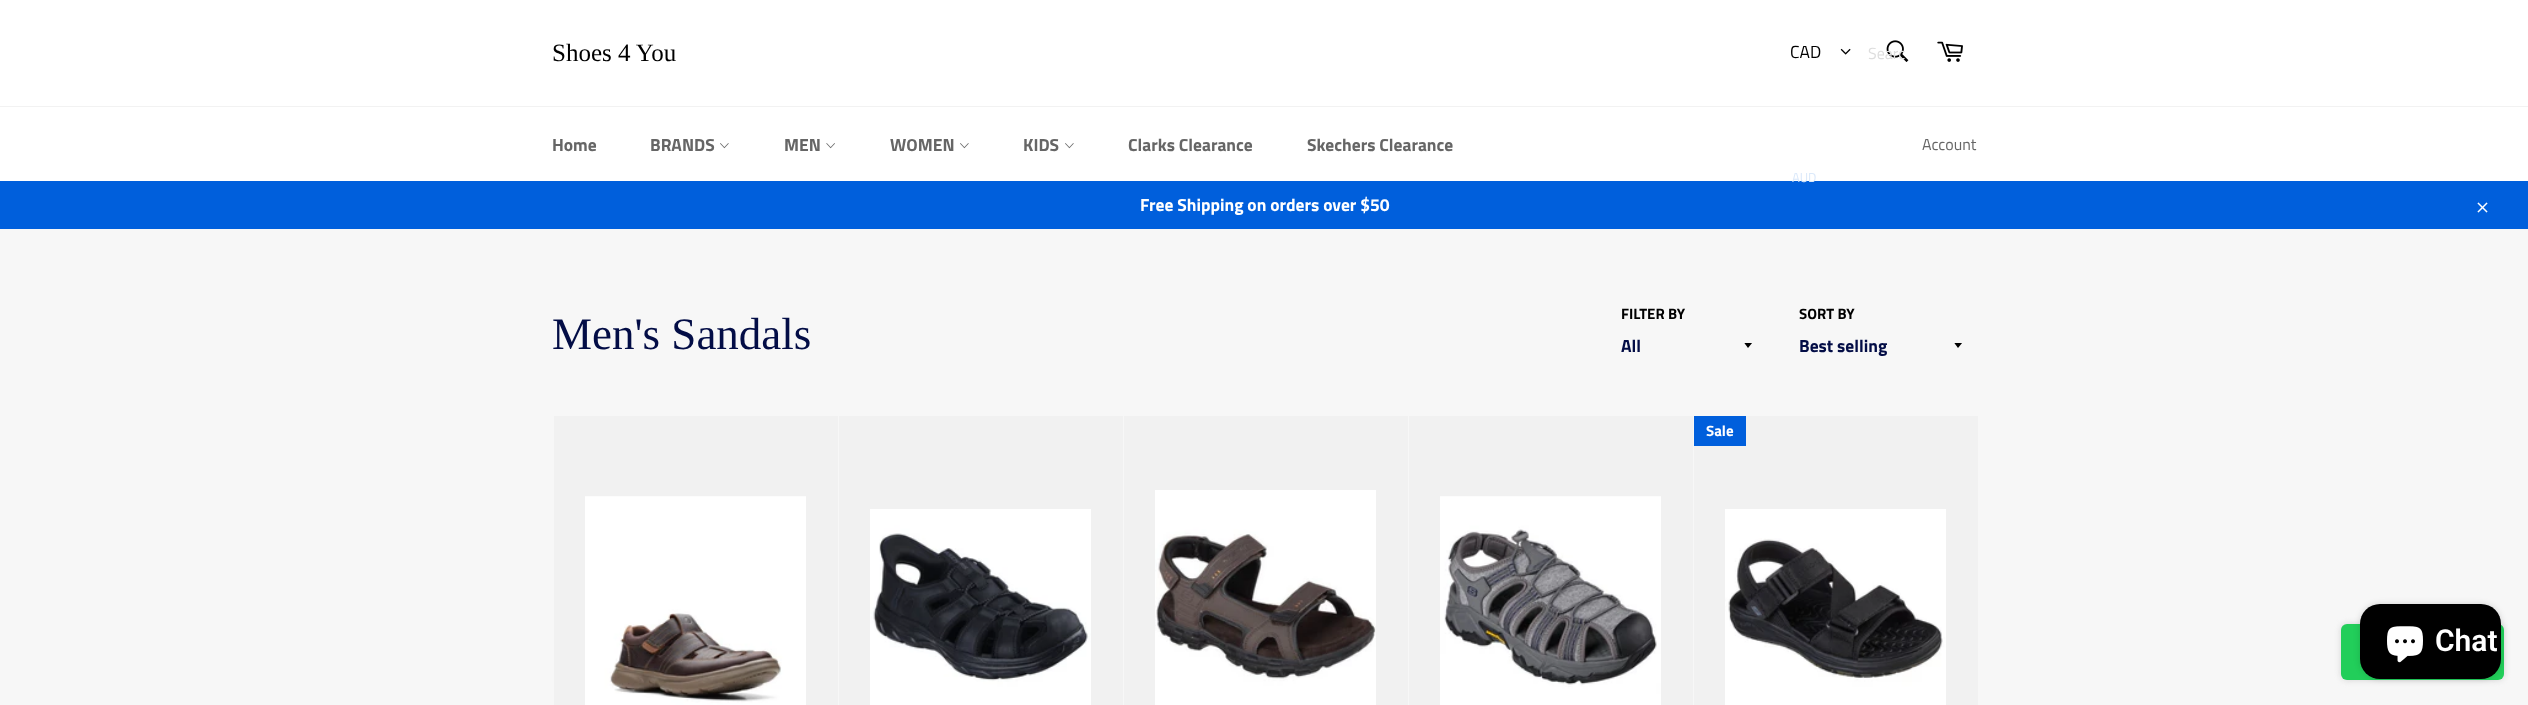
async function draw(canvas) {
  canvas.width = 2528
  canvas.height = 705
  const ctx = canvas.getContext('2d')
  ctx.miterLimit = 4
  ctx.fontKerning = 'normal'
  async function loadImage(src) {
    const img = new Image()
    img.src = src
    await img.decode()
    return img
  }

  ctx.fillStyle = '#f7f7f7'
  ctx.fillRect(0, 0, 2528, 705)
  ctx.fillStyle = '#fff'
  ctx.fillRect(0, 0, 2528, 106)
  ctx.font = '25px Liberation Serif'
  ctx.fillStyle = '#000'
  ctx.fillText('Shoes 4 You', 552, 61)
  ctx.font = '17.5px Titillium Web'
  ctx.fillText('CAD', 1790, 58)
  ctx.fillStyle = '#fff'
  ctx.fillRect(0, 107, 2528, 74)
  ctx.fillStyle = '#005fdc'
  ctx.fillRect(0, 181, 2528, 48)
  ctx.font = '13px Titillium Web'
  ctx.fillStyle = '#dbe9fa'
  ctx.fillText('AUD', 1792, 182)
  ctx.drawImage(await loadImage('image0.png'), 1840, 48, 11, 7)
  ctx.drawImage(await loadImage('image1.png'), 1886, 40, 23, 22)
  ctx.font = '16px Titillium Web'
  ctx.fillStyle = '#ddd'
  ctx.fillText('Searc', 1868, 59)
  ctx.drawImage(await loadImage('image2.png'), 1937, 41, 26, 21)
  ctx.fillStyle = '#f2f2f2'
  ctx.fillRect(0, 106, 2528, 1)
  ctx.font = 'bold 17.5px Titillium Web'
  ctx.fillStyle = '#666'
  ctx.fillText('Home', 552, 151)
  ctx.fillText('BRANDS', 650, 151)
  ctx.drawImage(await loadImage('image3.png'), 720, 143, 9, 6)
  ctx.fillText('MEN', 784, 151)
  ctx.drawImage(await loadImage('image4.png'), 826, 143, 9, 6)
  ctx.fillText('WOMEN', 890, 151)
  ctx.drawImage(await loadImage('image3.png'), 960, 143, 9, 6)
  ctx.fillText('KIDS', 1023, 151)
  ctx.drawImage(await loadImage('image3.png'), 1065, 143, 9, 6)
  ctx.fillText('Clarks Clearance', 1128, 151)
  ctx.fillText('Skechers Clearance', 1307, 151)
  ctx.font = '16px Titillium Web'
  ctx.fillText('Account', 1922, 150)
  ctx.font = 'bold 17.5px Titillium Web'
  ctx.fillStyle = '#fff'
  ctx.fillText('Free Shipping on orders over $50', 1140, 211)
  ctx.drawImage(await loadImage('image5.png'), 2477, 202, 11, 11)
  ctx.font = '45px Liberation Serif'
  ctx.fillStyle = '#030d46'
  ctx.fillText('Men\'s Sandals', 552, 349)
  ctx.font = 'bold 15px Titillium Web'
  ctx.fillStyle = '#000'
  ctx.fillText('FILTER BY', 1621, 319)
  ctx.save()
  ctx.beginPath()
  ctx.rect(1744, 343, 10, 6)
  ctx.clip()
  ctx.beginPath()
  ctx.moveTo(1744, 342.5)
  ctx.lineTo(1748, 348)
  ctx.lineTo(1752.5, 342.5)
  ctx.closePath()
  ctx.fill()
  ctx.restore()
  ctx.font = 'bold 17.5px Titillium Web'
  ctx.fillStyle = '#030d46'
  ctx.fillText('All', 1621, 352)
  ctx.font = 'bold 15px Titillium Web'
  ctx.fillStyle = '#000'
  ctx.fillText('SORT BY', 1799, 319)
  ctx.save()
  ctx.beginPath()
  ctx.rect(1954, 343, 10, 6)
  ctx.clip()
  ctx.beginPath()
  ctx.moveTo(1954, 342.5)
  ctx.lineTo(1958, 348)
  ctx.lineTo(1962.5, 342.5)
  ctx.closePath()
  ctx.fill()
  ctx.restore()
  ctx.font = 'bold 17.5px Titillium Web'
  ctx.fillStyle = '#030d46'
  ctx.fillText('Best selling', 1799, 352)
  ctx.fillStyle = '#f1f1f1'
  ctx.fillRect(554, 416, 284, 289)
  ctx.drawImage(await loadImage('image6.png'), 585, 496, 221, 209)
  ctx.fillRect(839, 416, 284, 289)
  ctx.drawImage(await loadImage('image7.png'), 870, 509, 221, 196)
  ctx.fillRect(1124, 416, 284, 289)
  ctx.drawImage(await loadImage('image8.png'), 1155, 490, 221, 215)
  ctx.fillRect(1409, 416, 284, 289)
  ctx.drawImage(await loadImage('image9.png'), 1440, 496, 221, 209)
  ctx.fillRect(1694, 416, 284, 289)
  ctx.fillStyle = '#005fdc'
  ctx.fillRect(1694, 416, 52, 30)
  ctx.font = 'bold 15px Titillium Web'
  ctx.fillStyle = '#fff'
  ctx.fillText('Sale', 1706, 436)
  ctx.drawImage(await loadImage('image10.png'), 1725, 509, 221, 196)
  ctx.fillStyle = '#d3d3d3'
  ctx.filter = 'blur(3px)'
  ctx.beginPath()
  ctx.roundRect(2341, 624, 163, 56, 6)
  ctx.fill()
  ctx.filter = 'none'
  ctx.fillStyle = '#22ce5a'
  ctx.beginPath()
  ctx.roundRect(2341, 624, 163, 56, 6)
  ctx.fill()
  ctx.fillStyle = '#00000026'
  ctx.filter = 'blur(3px)'
  ctx.beginPath()
  ctx.roundRect(2360, 604, 141, 75, 20)
  ctx.fill()
  ctx.filter = 'none'
  ctx.fillStyle = '#000'
  ctx.beginPath()
  ctx.roundRect(2360, 604, 141, 75, 20)
  ctx.fill()
  ctx.drawImage(await loadImage('image11.png'), 2387, 626, 36, 37)
  ctx.font = '600 30px Roboto'
  ctx.fillStyle = '#fff'
  ctx.fillText('Chat', 2435, 651)
}

draw(document.querySelector('canvas'))
